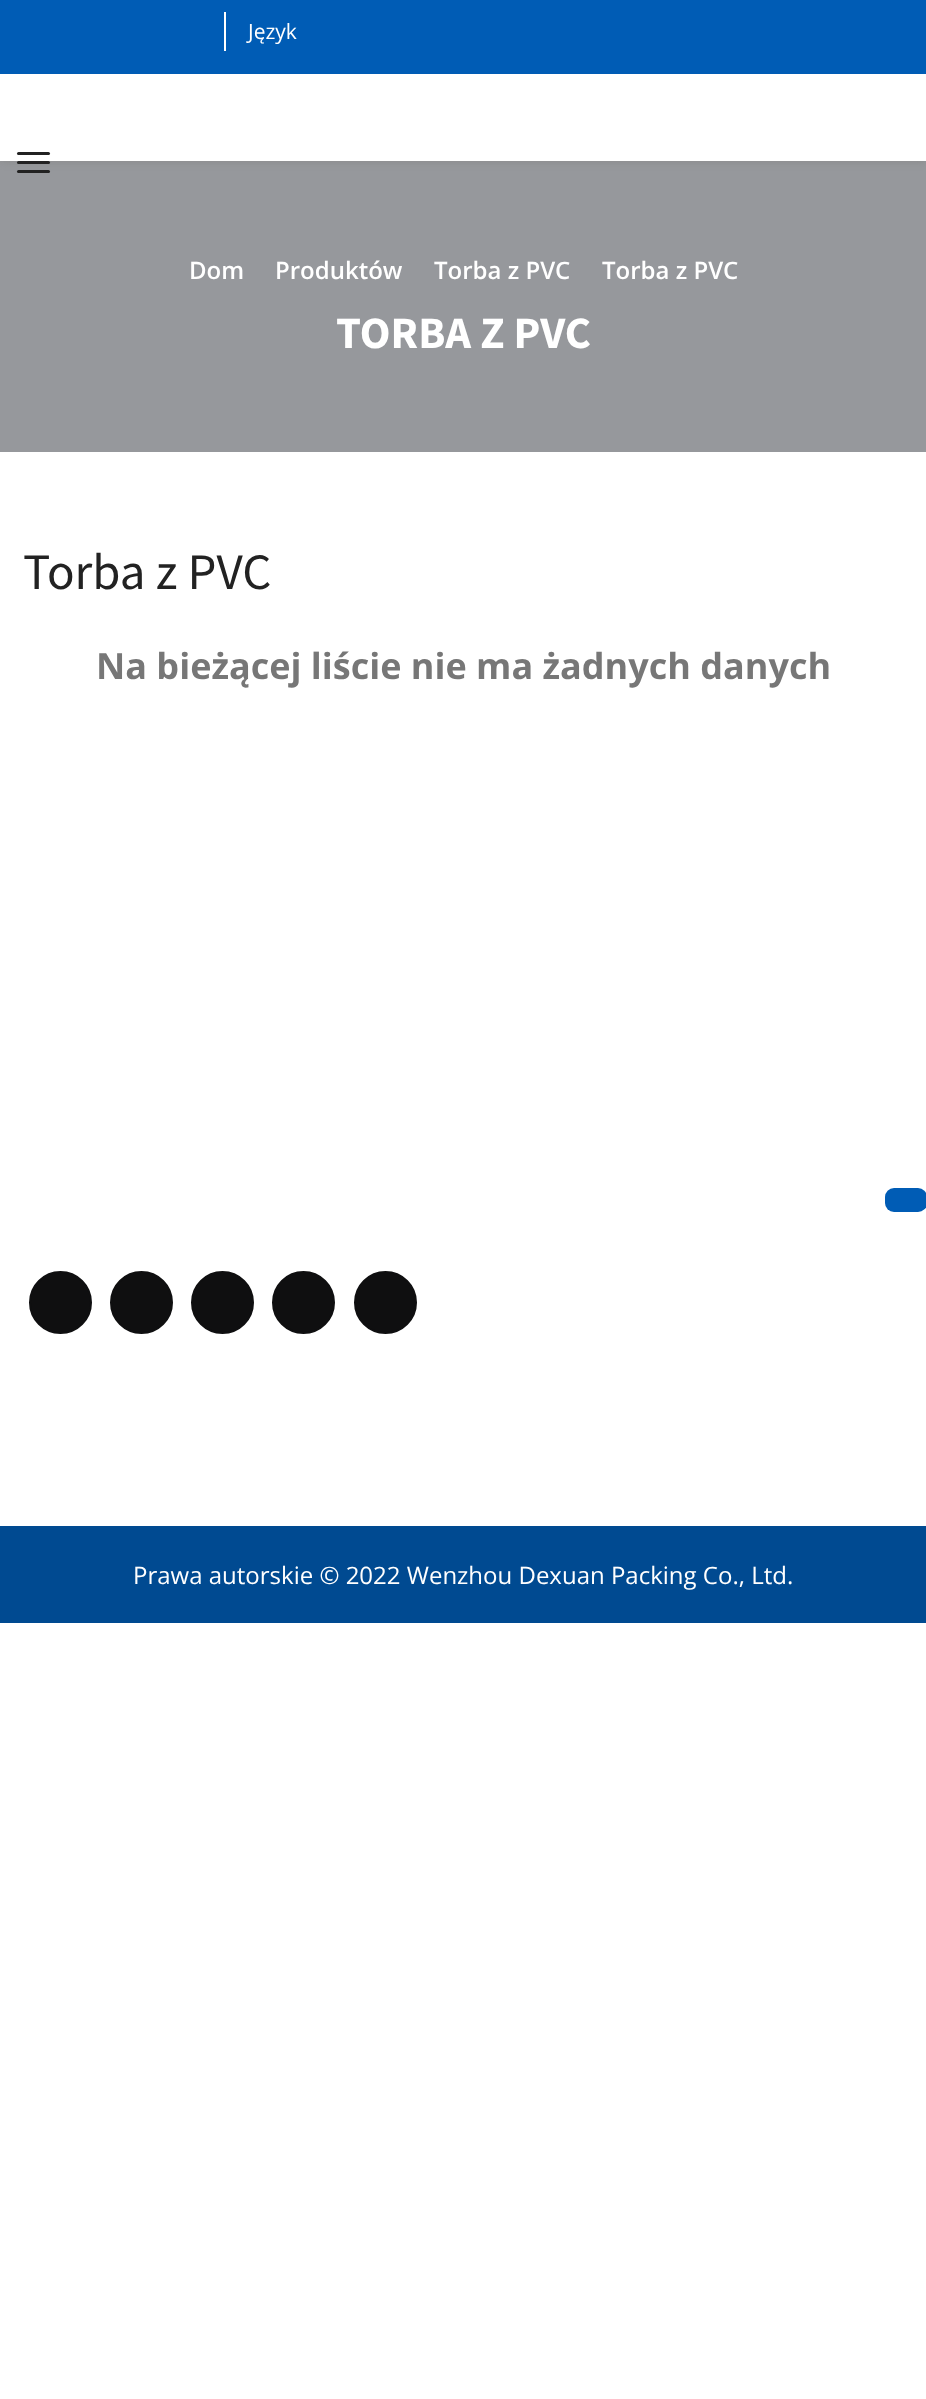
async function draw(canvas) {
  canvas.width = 926
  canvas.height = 2399
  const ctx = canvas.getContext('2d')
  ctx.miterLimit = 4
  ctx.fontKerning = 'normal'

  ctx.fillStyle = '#fff'
  ctx.fillRect(0, 0, 926, 2399)
  ctx.fillStyle = '#96989c'
  ctx.fillRect(0, 161, 926, 291)
  ctx.fillStyle = '#888'
  ctx.filter = 'blur(4px)'
  ctx.beginPath()
  ctx.rect(0, 74, 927, 87)
  ctx.fill()
  ctx.filter = 'none'
  ctx.fillStyle = '#005cb5'
  ctx.fillRect(0, 0, 926, 74)
  ctx.fillStyle = '#fff'
  ctx.fillRect(224, 12, 2, 39)
  ctx.font = '21px Open Sans'
  ctx.fillText('Język', 248, 39)
  ctx.fillRect(0, 74, 926, 87)
  ctx.fillStyle = '#222'
  ctx.beginPath()
  ctx.roundRect(17, 152, 33, 3, 1.5)
  ctx.fill()
  ctx.beginPath()
  ctx.roundRect(17, 161, 33, 3, 1.5)
  ctx.fill()
  ctx.beginPath()
  ctx.roundRect(17, 170, 33, 3, 1.5)
  ctx.fill()
  ctx.font = '600 24px Open Sans'
  ctx.fillStyle = '#fff'
  ctx.fillText('Dom', 189, 279)
  ctx.fillText('Produktów', 275, 279)
  ctx.fillText('Torba z PVC', 434, 279)
  ctx.fillText('Torba z PVC', 602, 279)
  ctx.font = 'bold 45px Source Sans Pro'
  ctx.fillText('TORBA Z PVC', 336, 348)
  ctx.font = '51px Source Sans Pro'
  ctx.fillStyle = '#222'
  ctx.fillText('Torba z PVC', 23, 589)
  ctx.font = 'bold 36px Open Sans'
  ctx.fillStyle = '#777'
  ctx.fillText('Na bieżącej liście nie ma żadnych danych', 96, 679)
  ctx.fillStyle = '#005cb5'
  ctx.beginPath()
  ctx.roundRect(885, 1188, 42, 24, 9)
  ctx.fill()
  ctx.fillStyle = '#0f0f10'
  ctx.beginPath()
  ctx.arc(60.5, 1302.5, 30.5, 0, 2 * Math.PI)
  ctx.fill()
  ctx.strokeStyle = '#0f0f10'
  ctx.lineWidth = 2
  ctx.stroke()
  ctx.beginPath()
  ctx.arc(141.5, 1302.5, 30.5, 0, 2 * Math.PI)
  ctx.fill()
  ctx.stroke()
  ctx.beginPath()
  ctx.arc(222.5, 1302.5, 30.5, 0, 2 * Math.PI)
  ctx.fill()
  ctx.stroke()
  ctx.beginPath()
  ctx.arc(303.5, 1302.5, 30.5, 0, 2 * Math.PI)
  ctx.fill()
  ctx.stroke()
  ctx.beginPath()
  ctx.arc(385.5, 1302.5, 30.5, 0, 2 * Math.PI)
  ctx.fill()
  ctx.stroke()
  ctx.fillStyle = '#004a91'
  ctx.fillRect(0, 1526, 926, 97)
  ctx.font = '24px Open Sans'
  ctx.fillStyle = '#fff'
  ctx.fillText('Prawa autorskie © 2022 Wenzhou Dexuan Packing Co., Ltd.', 133, 1584)
}

draw(document.querySelector('canvas'))
